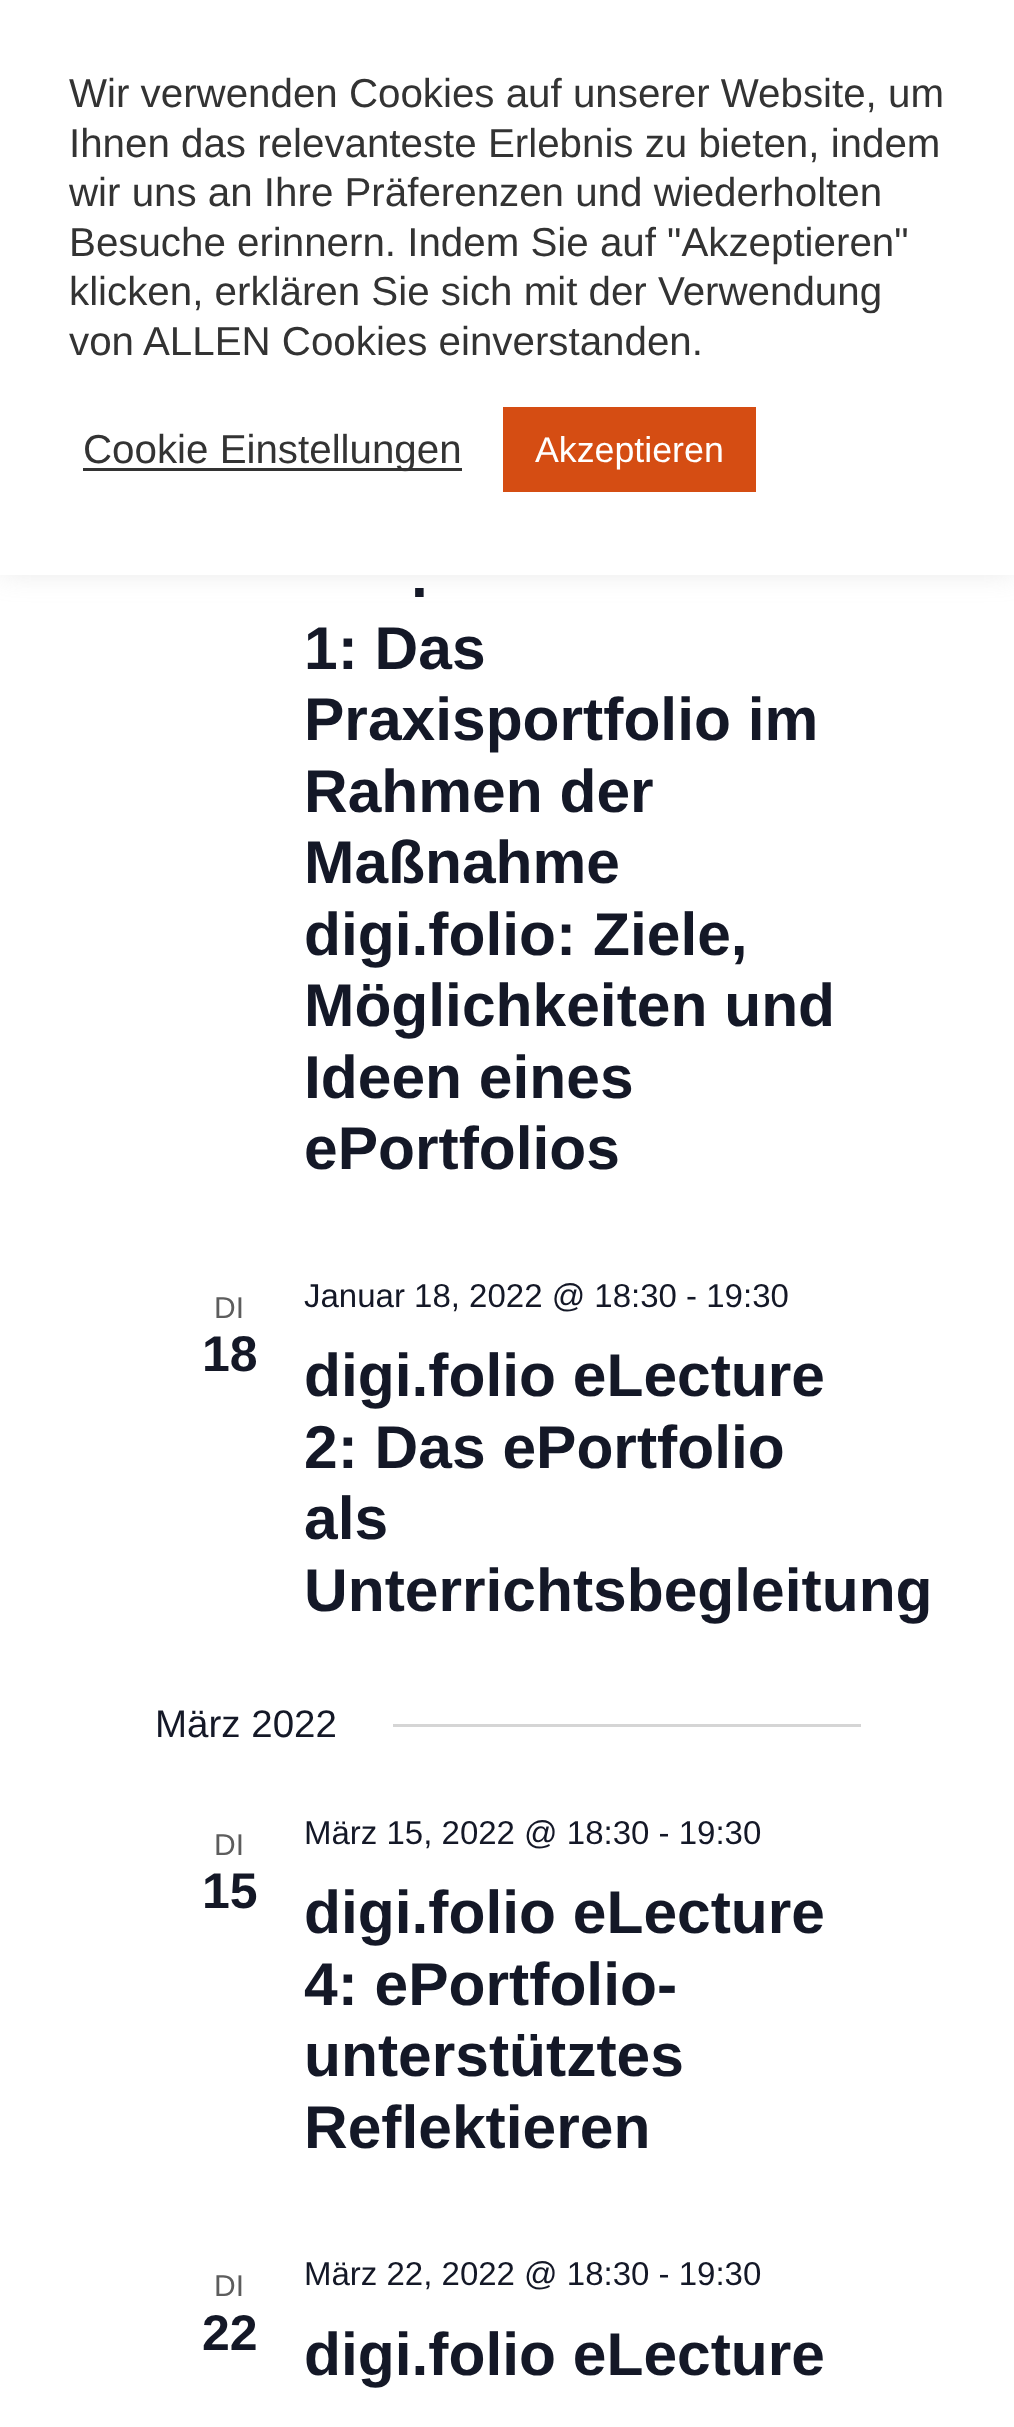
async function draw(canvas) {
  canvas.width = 1014
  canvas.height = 2427
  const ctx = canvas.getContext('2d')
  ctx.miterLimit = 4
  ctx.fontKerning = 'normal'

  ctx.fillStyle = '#fff'
  ctx.fillRect(0, 0, 1014, 2427)
  ctx.fillStyle = '#acabab4d'
  ctx.filter = 'blur(14px)'
  ctx.beginPath()
  ctx.rect(0, -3, 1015, 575)
  ctx.fill()
  ctx.filter = 'none'
  ctx.fillStyle = '#fff'
  ctx.fillRect(0, 0, 1014, 575)
  ctx.font = '40.3px Liberation Sans'
  ctx.fillStyle = '#333'
  ctx.fillText('Wir verwenden Cookies auf unserer Website, um', 69, 107)
  ctx.fillText('Ihnen das relevanteste Erlebnis zu bieten, indem', 69, 157)
  ctx.fillText('wir uns an Ihre Präferenzen und wiederholten', 69, 206)
  ctx.fillText('Besuche erinnern. Indem Sie auf "Akzeptieren"', 69, 256)
  ctx.fillText('klicken, erklären Sie sich mit der Verwendung', 69, 305)
  ctx.fillText('von ALLEN Cookies einverstanden.', 69, 355)
  ctx.fillRect(83, 468, 379, 3)
  ctx.fillText('Cookie Einstellungen', 83, 463)
  ctx.fillStyle = '#d54d13'
  ctx.fillRect(503, 407, 253, 85)
  ctx.font = '35.75px Liberation Sans'
  ctx.fillStyle = '#fff'
  ctx.fillText('Akzeptieren', 535, 462)
  ctx.font = 'bold 60.5px Liberation Sans'
  ctx.fillStyle = '#141827'
  ctx.fillText('.', 411, 597)
  ctx.fillText('1: Das', 304, 669)
  ctx.fillText('Praxisportfolio im', 304, 740)
  ctx.fillText('Rahmen der', 304, 812)
  ctx.fillText('Maßnahme', 304, 883)
  ctx.fillText('digi.folio: Ziele,', 304, 955)
  ctx.fillText('Möglichkeiten und', 304, 1026)
  ctx.fillText('Ideen eines', 304, 1098)
  ctx.fillText('ePortfolios', 304, 1169)
  ctx.font = '30px Liberation Sans'
  ctx.fillStyle = '#5d5d5d'
  ctx.fillText('DI', 214, 1318)
  ctx.font = 'bold 50px Liberation Sans'
  ctx.fillStyle = '#141827'
  ctx.fillText('18', 202, 1371)
  ctx.font = '33px Liberation Sans'
  ctx.fillText('Januar 18, 2022 @ 18:30 - 19:30', 304, 1307)
  ctx.font = 'bold 60.5px Liberation Sans'
  ctx.fillText('digi.folio eLecture', 304, 1396)
  ctx.fillText('2: Das ePortfolio', 304, 1468)
  ctx.fillText('als', 304, 1539)
  ctx.fillText('Unterrichtsbegleitung', 304, 1611)
  ctx.font = '38.5px Liberation Sans'
  ctx.fillText('März 2022', 155, 1737)
  ctx.fillStyle = '#d5d5d5'
  ctx.fillRect(393, 1724, 468, 3)
  ctx.font = '30px Liberation Sans'
  ctx.fillStyle = '#5d5d5d'
  ctx.fillText('DI', 214, 1855)
  ctx.font = 'bold 50px Liberation Sans'
  ctx.fillStyle = '#141827'
  ctx.fillText('15', 202, 1908)
  ctx.font = '33px Liberation Sans'
  ctx.fillText('März 15, 2022 @ 18:30 - 19:30', 304, 1844)
  ctx.font = 'bold 60.5px Liberation Sans'
  ctx.fillText('digi.folio eLecture', 304, 1933)
  ctx.fillText('4: ePortfolio-', 304, 2005)
  ctx.fillText('unterstütztes', 304, 2076)
  ctx.fillText('Reflektieren', 304, 2148)
  ctx.font = '30px Liberation Sans'
  ctx.fillStyle = '#5d5d5d'
  ctx.fillText('DI', 214, 2296)
  ctx.font = 'bold 50px Liberation Sans'
  ctx.fillStyle = '#141827'
  ctx.fillText('22', 202, 2350)
  ctx.font = '33px Liberation Sans'
  ctx.fillText('März 22, 2022 @ 18:30 - 19:30', 304, 2285)
  ctx.font = 'bold 60.5px Liberation Sans'
  ctx.fillText('digi.folio eLecture', 304, 2375)
}

draw(document.querySelector('canvas'))
